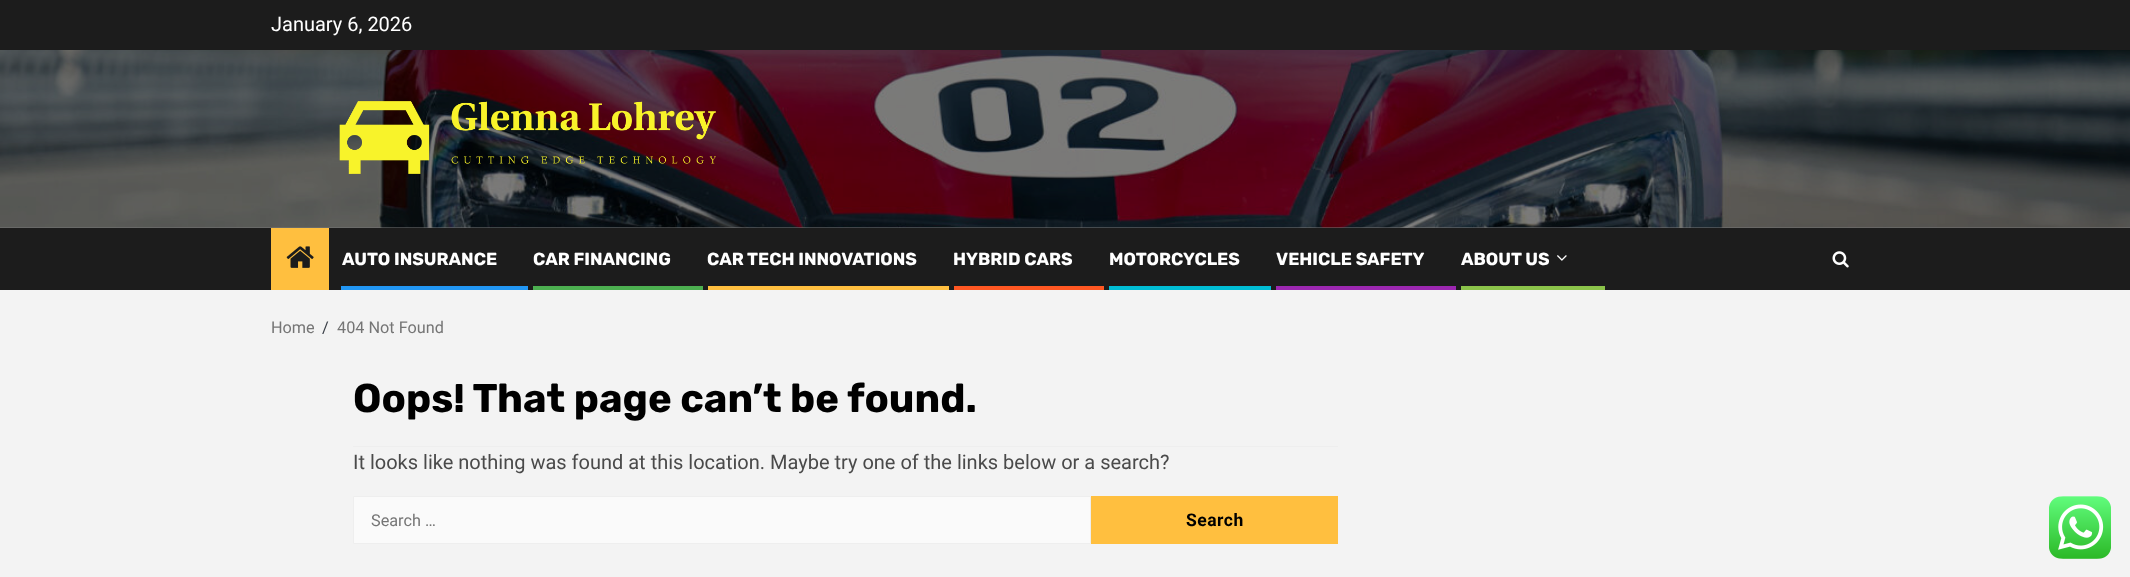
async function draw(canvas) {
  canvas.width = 2130
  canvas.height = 577
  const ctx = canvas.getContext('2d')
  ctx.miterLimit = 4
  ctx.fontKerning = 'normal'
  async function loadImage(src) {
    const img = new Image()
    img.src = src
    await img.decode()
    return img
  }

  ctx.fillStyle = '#f3f3f3'
  ctx.fillRect(0, 0, 2130, 577)
  ctx.fillStyle = '#787878'
  ctx.fillRect(0, 227, 2130, 1)
  ctx.fillStyle = '#1c1c1c'
  ctx.fillRect(0, 0, 2130, 50)
  ctx.font = '20px Roboto'
  ctx.fillStyle = '#fff'
  ctx.fillText('January 6, 2026', 271, 31)
  ctx.drawImage(await loadImage('image0.png'), 0, 50, 2130, 178)
  ctx.drawImage(await loadImage('image1.png'), 339, 101, 377, 73)
  ctx.fillStyle = '#1c1c1c'
  ctx.fillRect(0, 228, 2130, 62)
  ctx.fillStyle = '#ffbf3f'
  ctx.fillRect(271, 228, 58, 62)
  ctx.drawImage(await loadImage('image2.png'), 286, 246, 28, 22)
  ctx.font = 'bold 17.5px Rubik'
  ctx.fillStyle = '#fff'
  ctx.fillText('AUTO INSURANCE', 342, 265)
  ctx.fillStyle = '#2196f3'
  ctx.fillRect(341, 286, 187, 4)
  ctx.fillStyle = '#fff'
  ctx.fillText('CAR FINANCING', 533, 265)
  ctx.fillStyle = '#4caf50'
  ctx.fillRect(533, 286, 170, 4)
  ctx.fillStyle = '#fff'
  ctx.fillText('CAR TECH INNOVATIONS', 707, 265)
  ctx.fillStyle = '#ffbf3f'
  ctx.fillRect(708, 286, 241, 4)
  ctx.fillStyle = '#fff'
  ctx.fillText('HYBRID CARS', 953, 265)
  ctx.fillStyle = '#ff5722'
  ctx.fillRect(954, 286, 150, 4)
  ctx.fillStyle = '#fff'
  ctx.fillText('MOTORCYCLES', 1109, 265)
  ctx.fillStyle = '#00bcd4'
  ctx.fillRect(1109, 286, 162, 4)
  ctx.fillStyle = '#fff'
  ctx.fillText('VEHICLE SAFETY', 1276, 265)
  ctx.fillStyle = '#9c27b0'
  ctx.fillRect(1276, 286, 180, 4)
  ctx.fillStyle = '#fff'
  ctx.fillText('ABOUT US', 1461, 265)
  ctx.drawImage(await loadImage('image3.png'), 1557, 255, 10, 6)
  ctx.fillStyle = '#8bc34a'
  ctx.fillRect(1461, 286, 144, 4)
  ctx.drawImage(await loadImage('image4.png'), 1832, 251, 17, 17)
  ctx.font = '16.25px Roboto'
  ctx.fillStyle = '#757575'
  ctx.fillText('Home', 271, 333)
  ctx.fillStyle = '#393e46'
  ctx.fillText('/', 322, 333)
  ctx.fillStyle = '#757575'
  ctx.fillText('404 Not Found', 337, 333)
  ctx.fillStyle = '#eee'
  ctx.fillRect(353, 446, 985, 1)
  ctx.font = 'bold 40px Rubik'
  ctx.fillStyle = '#000'
  ctx.fillText('Oops! That page can’t be found.', 353, 412)
  ctx.font = '20px Roboto'
  ctx.fillStyle = '#4a4a4a'
  ctx.fillText('It looks like nothing was found at this location. Maybe try one of the links below or a search?', 353, 469)
  ctx.fillStyle = '#fafafa'
  ctx.beginPath()
  ctx.rect(353.5, 496.5, 737, 47)
  ctx.fill()
  ctx.strokeStyle = '#eee'
  ctx.stroke()
  ctx.font = '16.25px Roboto'
  ctx.fillStyle = '#757575'
  ctx.fillText('Search …', 371, 526)
  ctx.fillStyle = '#ffbf3f'
  ctx.fillRect(1091, 496, 247, 48)
  ctx.letterSpacing = '0.5px'
  ctx.font = 'bold 17.5px Roboto'
  ctx.fillStyle = '#000'
  ctx.fillText('Search', 1186, 526)
  ctx.drawImage(await loadImage('image5.png'), 2049, 496, 62, 63)
}

draw(document.querySelector('canvas'))
